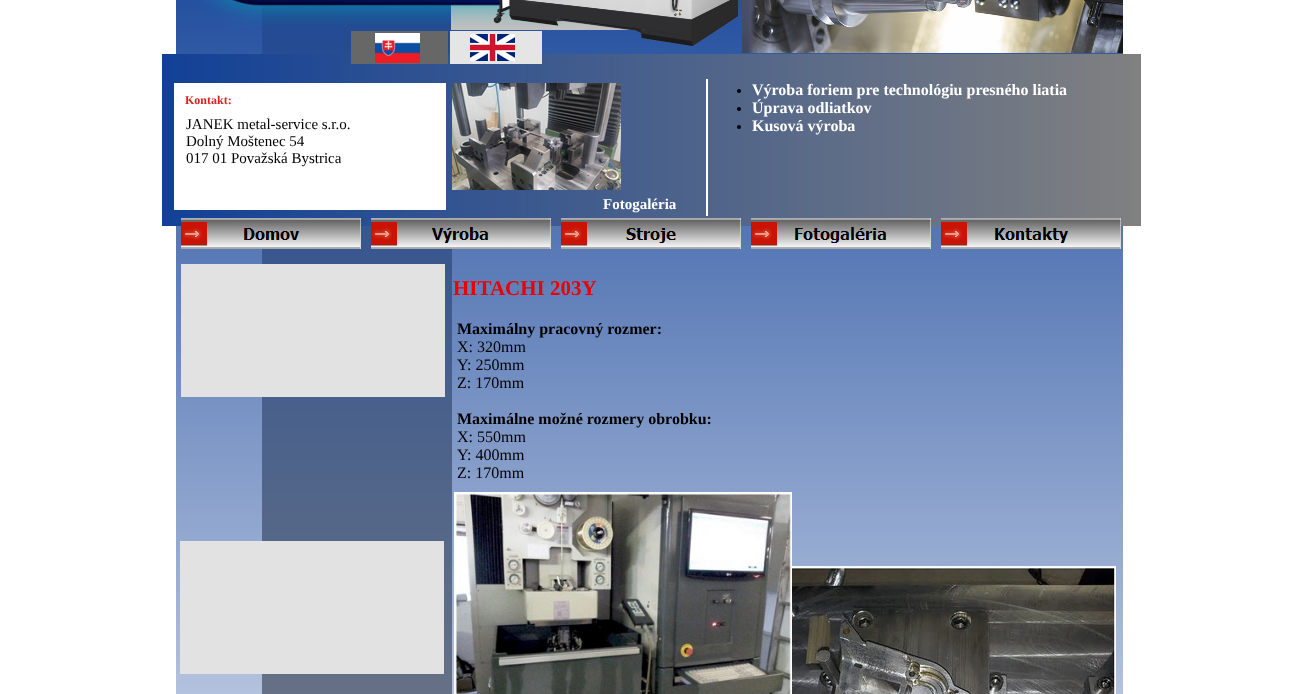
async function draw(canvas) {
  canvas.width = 1303
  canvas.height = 694
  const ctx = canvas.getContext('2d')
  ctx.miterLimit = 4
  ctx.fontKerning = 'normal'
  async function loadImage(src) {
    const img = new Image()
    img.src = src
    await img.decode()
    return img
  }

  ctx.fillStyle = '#fff'
  ctx.fillRect(0, 0, 1303, 694)
  ctx.drawImage(await loadImage('image0.png'), 176, 0, 947, 694)
  ctx.drawImage(await loadImage('image4.png'), 262, 4, 190, 690)
  ctx.fillStyle = '#c0c0c0'
  ctx.fillRect(451, 4, 181, 26)
  ctx.drawImage(await loadImage('image1.png'), 202, 0, 375, 27)
  ctx.drawImage(await loadImage('image7.png'), 162, 54, 979, 172)
  ctx.fillStyle = '#e5e5e5'
  ctx.fillRect(450, 31, 92, 33)
  ctx.drawImage(await loadImage('image6.png'), 470, 34, 45, 27)
  ctx.drawImage(await loadImage('image2.png'), 493, 0, 246, 46)
  ctx.drawImage(await loadImage('image3.png'), 742, 0, 381, 53)
  ctx.fillStyle = '#676767'
  ctx.fillRect(351, 31, 97, 33)
  ctx.drawImage(await loadImage('image5.png'), 375, 33, 45, 30)
  ctx.fillStyle = '#fff'
  ctx.fillRect(174, 83, 272, 127)
  ctx.drawImage(await loadImage('image8.png'), 452, 83, 169, 107)
  ctx.fillRect(706, 79, 2, 137)
  ctx.fillStyle = '#000'
  ctx.beginPath()
  ctx.arc(739, 91, 2, 0, 2 * Math.PI)
  ctx.fill()
  ctx.font = 'bold 16px Liberation Serif'
  ctx.fillStyle = '#fff'
  ctx.fillText('Výroba foriem pre technológiu presného liatia', 752, 95)
  ctx.fillStyle = '#000'
  ctx.beginPath()
  ctx.arc(739, 109, 2, 0, 2 * Math.PI)
  ctx.fill()
  ctx.fillStyle = '#fff'
  ctx.fillText('Úprava odliatkov', 752, 113)
  ctx.fillStyle = '#000'
  ctx.beginPath()
  ctx.arc(739, 127, 2, 0, 2 * Math.PI)
  ctx.fill()
  ctx.fillStyle = '#fff'
  ctx.fillText('Kusová výroba', 752, 131)
  ctx.font = 'bold 12px Liberation Serif'
  ctx.fillStyle = '#dd2020'
  ctx.fillText('Kontakt:', 185, 104)
  ctx.font = '15px Liberation Serif'
  ctx.fillStyle = '#000'
  ctx.fillText('JANEK metal-service s.r.o.', 186, 129)
  ctx.fillText('Dolný Moštenec 54', 186, 146)
  ctx.fillText('017 01 Považská Bystrica', 186, 163)
  ctx.font = 'bold 15px Liberation Serif'
  ctx.fillStyle = '#fff'
  ctx.fillText('Fotogaléria', 603, 209)
  ctx.drawImage(await loadImage('image9.png'), 181, 218, 180, 31)
  ctx.drawImage(await loadImage('image10.png'), 371, 218, 180, 31)
  ctx.drawImage(await loadImage('image11.png'), 561, 218, 180, 31)
  ctx.drawImage(await loadImage('image12.png'), 751, 218, 180, 31)
  ctx.drawImage(await loadImage('image13.png'), 941, 218, 180, 31)
  ctx.fillStyle = '#e2e2e2'
  ctx.fillRect(181, 264, 264, 133)
  ctx.font = 'bold 21px Liberation Serif'
  ctx.fillStyle = '#ec0000'
  ctx.fillText('HITACHI 203Y', 453, 295)
  ctx.font = 'bold 16px Liberation Serif'
  ctx.fillStyle = '#000'
  ctx.fillText('Maximálny pracovný rozmer:', 457, 334)
  ctx.font = '16px Liberation Serif'
  ctx.fillText('X: 320mm', 457, 352)
  ctx.fillText('Y: 250mm', 457, 370)
  ctx.fillText('Z: 170mm', 457, 388)
  ctx.font = 'bold 16px Liberation Serif'
  ctx.fillText('Maximálne možné rozmery obrobku:', 457, 424)
  ctx.font = '16px Liberation Serif'
  ctx.fillText('X: 550mm', 457, 442)
  ctx.fillText('Y: 400mm', 457, 460)
  ctx.fillText('Z: 170mm', 457, 478)
  ctx.fillStyle = '#e2e2e2'
  ctx.fillRect(180, 541, 264, 133)
  ctx.drawImage(await loadImage('image14.png'), 454, 492, 338, 202)
  ctx.drawImage(await loadImage('image15.png'), 792, 566, 324, 128)
}

draw(document.querySelector('canvas'))
